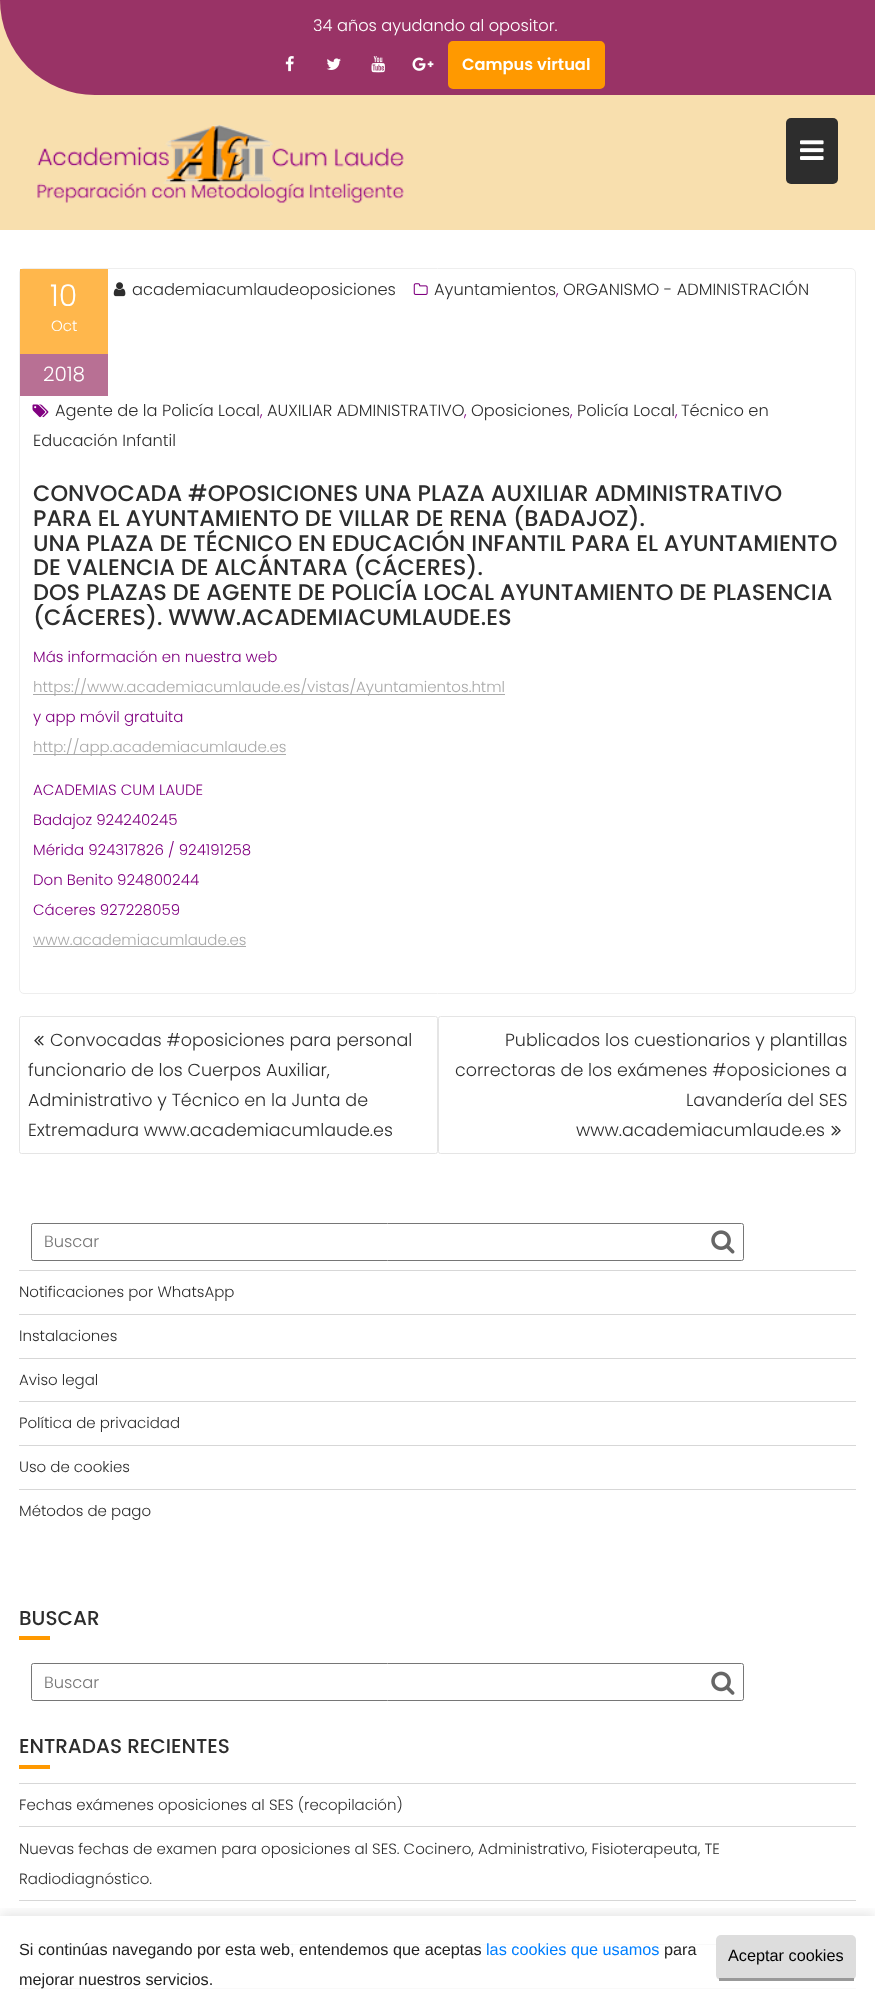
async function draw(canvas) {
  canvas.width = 875
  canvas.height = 2013
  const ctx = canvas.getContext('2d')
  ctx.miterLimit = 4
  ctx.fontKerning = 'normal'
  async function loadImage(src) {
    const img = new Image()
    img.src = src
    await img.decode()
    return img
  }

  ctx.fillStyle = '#fff'
  ctx.fillRect(0, 0, 875, 2013)
  ctx.fillStyle = '#f8dfae'
  ctx.fillRect(0, 0, 875, 230)
  ctx.fillStyle = '#936'
  ctx.beginPath()
  ctx.roundRect(0, 0, 875, 95, [0, 0, 0, 95])
  ctx.fill()
  ctx.font = '300 16.25px Poppins'
  ctx.fillStyle = '#fff'
  ctx.fillText('34 años ayudando al opositor.', 313, 31)
  ctx.drawImage(await loadImage('image0.png'), 285, 56, 9, 16)
  ctx.drawImage(await loadImage('image1.png'), 326, 58, 15, 12)
  ctx.drawImage(await loadImage('image2.png'), 371, 56, 14, 17)
  ctx.drawImage(await loadImage('image3.png'), 412, 57, 22, 14)
  ctx.fillStyle = '#f90'
  ctx.beginPath()
  ctx.roundRect(449.5, 42.5, 154, 45, 3.5)
  ctx.fill()
  ctx.strokeStyle = '#f90'
  ctx.lineWidth = 3
  ctx.stroke()
  ctx.font = '600 16.25px Poppins'
  ctx.fillStyle = '#fff'
  ctx.fillText('Campus virtual', 462, 70)
  ctx.drawImage(await loadImage('image4.png'), 37, 125, 367, 79)
  ctx.fillStyle = '#2d2d2d'
  ctx.beginPath()
  ctx.roundRect(786, 118, 52, 66, 5)
  ctx.fill()
  ctx.drawImage(await loadImage('image5.png'), 800, 140, 24, 20)
  ctx.beginPath()
  ctx.roundRect(19.5, 268.5, 836, 725, 4.5)
  ctx.strokeStyle = '#eee'
  ctx.lineWidth = 1
  ctx.stroke()
  ctx.drawImage(await loadImage('image6.png'), 113, 282, 13, 15)
  ctx.font = '300 16.25px Poppins'
  ctx.fillText('academiacumlaudeoposiciones', 132, 295)
  ctx.drawImage(await loadImage('image7.png'), 413, 283, 15, 12)
  ctx.fillText('Ayuntamientos', 434, 295)
  ctx.fillText('ORGANISMO - ADMINISTRACIÓN', 563, 295)
  ctx.font = '300 15px Poppins'
  ctx.fillStyle = '#800080'
  ctx.fillText(',', 556, 295)
  ctx.drawImage(await loadImage('image8.png'), 32, 404, 17, 14)
  ctx.font = '300 16.25px Poppins'
  ctx.fillStyle = '#2d2d2d'
  ctx.fillText('Agente de la Policía Local', 55, 416)
  ctx.font = '300 15px Poppins'
  ctx.fillStyle = '#800080'
  ctx.fillText(',', 260, 416)
  ctx.font = '300 16.25px Poppins'
  ctx.fillStyle = '#2d2d2d'
  ctx.fillText('AUXILIAR ADMINISTRATIVO', 267, 416)
  ctx.font = '300 15px Poppins'
  ctx.fillStyle = '#800080'
  ctx.fillText(',', 464, 416)
  ctx.font = '300 16.25px Poppins'
  ctx.fillStyle = '#2d2d2d'
  ctx.fillText('Oposiciones', 471, 416)
  ctx.font = '300 15px Poppins'
  ctx.fillStyle = '#800080'
  ctx.fillText(',', 570, 416)
  ctx.font = '300 16.25px Poppins'
  ctx.fillStyle = '#2d2d2d'
  ctx.fillText('Policía Local', 577, 416)
  ctx.font = '300 15px Poppins'
  ctx.fillStyle = '#800080'
  ctx.fillText(',', 675, 416)
  ctx.font = '300 16.25px Poppins'
  ctx.fillStyle = '#2d2d2d'
  ctx.fillText('Técnico en', 681, 416)
  ctx.fillText('Educación Infantil', 33, 446)
  ctx.font = '500 22.5px Poppins'
  ctx.fillText('CONVOCADA #OPOSICIONES UNA PLAZA AUXILIAR ADMINISTRATIVO', 33, 501)
  ctx.fillText('PARA EL AYUNTAMIENTO DE VILLAR DE RENA (BADAJOZ).', 33, 526)
  ctx.fillText('UNA PLAZA DE TÉCNICO EN EDUCACIÓN INFANTIL PARA EL AYUNTAMIENTO', 33, 551)
  ctx.fillText('DE VALENCIA DE ALCÁNTARA (CÁCERES).', 33, 575)
  ctx.fillText('DOS PLAZAS DE AGENTE DE POLICÍA LOCAL AYUNTAMIENTO DE PLASENCIA', 33, 600)
  ctx.fillText('(CÁCERES). WWW.ACADEMIACUMLAUDE.ES', 33, 625)
  ctx.font = '300 15px Poppins'
  ctx.fillStyle = '#800080'
  ctx.fillText('Más información en nuestra web', 33, 662)
  ctx.fillStyle = '#aaa'
  ctx.fillRect(33, 694, 472, 1)
  ctx.fillText('https://www.academiacumlaude.es/vistas/Ayuntamientos.html', 33, 692)
  ctx.fillStyle = '#800080'
  ctx.fillText('y app móvil gratuita', 33, 722)
  ctx.fillStyle = '#aaa'
  ctx.fillRect(33, 754, 253, 1)
  ctx.fillText('http://app.academiacumlaude.es', 33, 752)
  ctx.fillStyle = '#800080'
  ctx.fillText('ACADEMIAS CUM LAUDE', 33, 795)
  ctx.fillText('Badajoz 924240245', 33, 825)
  ctx.fillText('Mérida 924317826 / 924191258', 33, 855)
  ctx.fillText('Don Benito 924800244', 33, 885)
  ctx.fillText('Cáceres 927228059', 33, 915)
  ctx.fillStyle = '#aaa'
  ctx.fillText('www.academiacumlaude.es', 33, 945)
  ctx.fillRect(33, 946, 213, 1)
  ctx.fillStyle = '#ff9900b3'
  ctx.fillRect(20, 269, 88, 85)
  ctx.font = '300 30px Poppins'
  ctx.fillStyle = '#fff'
  ctx.fillText('10', 50, 306)
  ctx.font = '300 15px Poppins'
  ctx.fillText('Oct', 51, 331)
  ctx.fillStyle = '#b87094'
  ctx.fillRect(20, 354, 88, 42)
  ctx.font = '300 20px Poppins'
  ctx.fillStyle = '#fff'
  ctx.fillText('2018', 43, 381)
  ctx.beginPath()
  ctx.roundRect(19.5, 1016.5, 418, 137, 2)
  ctx.strokeStyle = '#e5e5e5'
  ctx.stroke()
  ctx.drawImage(await loadImage('image9.png'), 34, 1035, 10, 11)
  ctx.font = '300 17.5px Poppins'
  ctx.fillStyle = '#2d2d2d'
  ctx.fillText('Convocadas #oposiciones para personal', 50, 1046)
  ctx.fillText('funcionario de los Cuerpos Auxiliar,', 28, 1076)
  ctx.fillText('Administrativo y Técnico en la Junta de', 28, 1106)
  ctx.fillText('Extremadura www.academiacumlaude.es', 28, 1136)
  ctx.beginPath()
  ctx.roundRect(438.5, 1016.5, 417, 137, 2)
  ctx.stroke()
  ctx.fillText('Publicados los cuestionarios y plantillas', 505, 1046)
  ctx.fillText('correctoras de los exámenes #oposiciones a', 455, 1076)
  ctx.fillText('Lavandería del SES', 686, 1106)
  ctx.fillText('www.academiacumlaude.es', 576, 1136)
  ctx.drawImage(await loadImage('image10.png'), 831, 1125, 10, 11)
  ctx.beginPath()
  ctx.roundRect(31.5, 1223.5, 712, 37, 2)
  ctx.strokeStyle = '#767676'
  ctx.stroke()
  ctx.font = '300 16.25px Poppins'
  ctx.fillStyle = '#757575'
  ctx.fillText('Buscar', 44, 1247)
  ctx.drawImage(await loadImage('image11.png'), 711, 1230, 24, 24)
  ctx.fillStyle = '#d7d7d7'
  ctx.fillRect(19, 1270, 837, 1)
  ctx.font = '300 15px Poppins'
  ctx.fillStyle = '#2d2d2d'
  ctx.fillText('Notificaciones por WhatsApp', 19, 1297)
  ctx.fillStyle = '#d7d7d7'
  ctx.fillRect(19, 1314, 837, 1)
  ctx.fillStyle = '#2d2d2d'
  ctx.fillText('Instalaciones', 19, 1341)
  ctx.fillStyle = '#d7d7d7'
  ctx.fillRect(19, 1358, 837, 1)
  ctx.fillStyle = '#2d2d2d'
  ctx.fillText('Aviso legal', 19, 1385)
  ctx.fillStyle = '#d7d7d7'
  ctx.fillRect(19, 1401, 837, 1)
  ctx.fillStyle = '#2d2d2d'
  ctx.fillText('Política de privacidad', 19, 1428)
  ctx.fillStyle = '#d7d7d7'
  ctx.fillRect(19, 1445, 837, 1)
  ctx.fillStyle = '#2d2d2d'
  ctx.fillText('Uso de cookies', 19, 1472)
  ctx.fillStyle = '#d7d7d7'
  ctx.fillRect(19, 1489, 837, 1)
  ctx.fillStyle = '#2d2d2d'
  ctx.fillText('Métodos de pago', 19, 1516)
  ctx.font = '500 20px Poppins'
  ctx.fillText('BUSCAR', 19, 1625)
  ctx.fillStyle = '#f90'
  ctx.fillRect(19, 1636, 31, 4)
  ctx.beginPath()
  ctx.roundRect(31.5, 1663.5, 712, 37, 2)
  ctx.stroke()
  ctx.font = '300 16.25px Poppins'
  ctx.fillStyle = '#757575'
  ctx.fillText('Buscar', 44, 1688)
  ctx.drawImage(await loadImage('image12.png'), 711, 1671, 24, 24)
  ctx.font = '500 20px Poppins'
  ctx.fillStyle = '#2d2d2d'
  ctx.fillText('ENTRADAS RECIENTES', 19, 1753)
  ctx.fillStyle = '#f90'
  ctx.fillRect(19, 1765, 31, 4)
  ctx.fillStyle = '#d7d7d7'
  ctx.fillRect(19, 1783, 837, 1)
  ctx.font = '300 15px Poppins'
  ctx.fillStyle = '#2d2d2d'
  ctx.fillText('Fechas exámenes oposiciones al SES (recopilación)', 19, 1810)
  ctx.fillStyle = '#d7d7d7'
  ctx.fillRect(19, 1826, 837, 1)
  ctx.fillStyle = '#2d2d2d'
  ctx.fillText('Nuevas fechas de examen para oposiciones al SES. Cocinero, Administrativo, Fisioterapeuta, TE', 19, 1854)
  ctx.fillText('Radiodiagnóstico.', 19, 1884)
  ctx.fillStyle = '#d7d7d7'
  ctx.fillRect(19, 1900, 837, 1)
  ctx.fillRect(19, 1944, 697, 1)
  ctx.fillRect(19, 1988, 837, 1)
  ctx.save()
  ctx.beginPath()
  ctx.rect(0, 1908, 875, 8)
  ctx.clip()
  ctx.fillStyle = '#0000001a'
  ctx.filter = 'blur(6px)'
  ctx.beginPath()
  ctx.rect(0, 1913, 875, 97)
  ctx.fill()
  ctx.filter = 'none'
  ctx.restore()
  ctx.fillStyle = '#ffffffd9'
  ctx.fillRect(3, 1916, 869, 73)
  ctx.font = '16.25px Liberation Sans'
  ctx.fillStyle = '#222'
  ctx.fillText('Si continúas navegando por esta web, entendemos que aceptas', 19, 1955)
  ctx.fillStyle = '#007fff'
  ctx.fillText('las cookies que usamos', 486, 1955)
  ctx.fillStyle = '#222'
  ctx.fillText('para', 664, 1955)
  ctx.fillStyle = '#ddd'
  ctx.beginPath()
  ctx.roundRect(716, 1935, 140, 45, 5)
  ctx.fill()
  ctx.fillStyle = '#999'
  ctx.fillRect(719, 1978, 135, 3)
  ctx.fillStyle = '#000'
  ctx.fillText('Aceptar cookies', 728, 1961)
  ctx.fillStyle = '#222'
  ctx.fillText('mejorar nuestros servicios.', 19, 1985)
}

draw(document.querySelector('canvas'))
